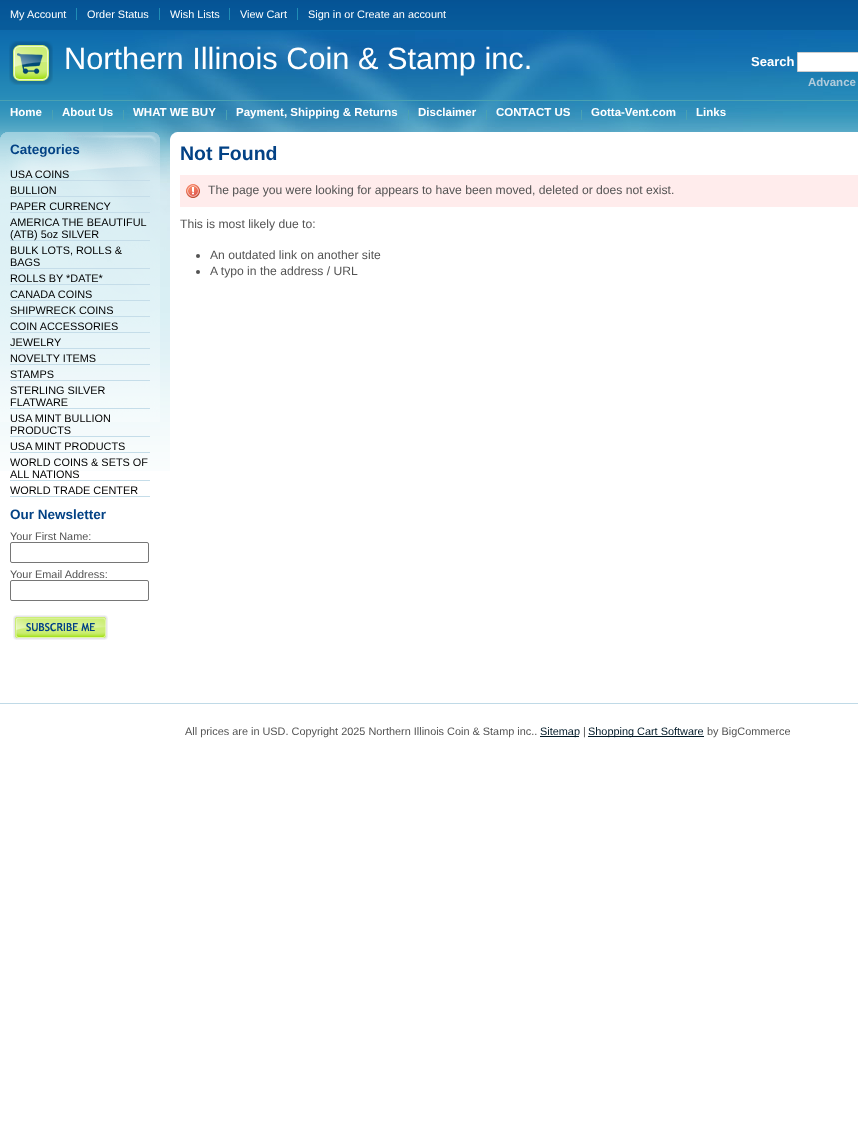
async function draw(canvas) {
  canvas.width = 858
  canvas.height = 1130
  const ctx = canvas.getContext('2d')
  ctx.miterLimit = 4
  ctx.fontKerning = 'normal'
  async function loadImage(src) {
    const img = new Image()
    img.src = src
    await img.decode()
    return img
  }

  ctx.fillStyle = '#fff'
  ctx.fillRect(0, 0, 858, 1130)
  ctx.drawImage(await loadImage('image0.png'), 0, 0, 858, 471)
  ctx.font = '10.9px Liberation Sans'
  ctx.fillText('My Account', 10, 18)
  ctx.fillStyle = '#208db5'
  ctx.fillRect(76, 8, 1, 12)
  ctx.fillStyle = '#fff'
  ctx.fillText('Order Status', 87, 18)
  ctx.fillStyle = '#208db5'
  ctx.fillRect(159, 8, 1, 12)
  ctx.fillStyle = '#fff'
  ctx.fillText('Wish Lists', 170, 18)
  ctx.fillStyle = '#208db5'
  ctx.fillRect(229, 8, 1, 12)
  ctx.fillStyle = '#fff'
  ctx.fillText('View Cart', 240, 18)
  ctx.fillStyle = '#208db5'
  ctx.fillRect(297, 8, 1, 12)
  ctx.fillStyle = '#fff'
  ctx.fillText('Sign in or Create an account', 308, 18)
  ctx.drawImage(await loadImage('image1.png'), 103, 31, 755, 220)
  ctx.fillStyle = '#4aa1b2'
  ctx.fillRect(0, 100, 858, 1)
  ctx.drawImage(await loadImage('image2.png'), 9, 41, 44, 44)
  ctx.font = '30.75px Liberation Sans'
  ctx.fillStyle = '#fff'
  ctx.fillText('Northern Illinois Coin & Stamp inc.', 64, 69)
  ctx.font = 'bold 13px Liberation Sans'
  ctx.fillText('Search', 751, 66)
  ctx.beginPath()
  ctx.rect(797.5, 52.5, 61, 19)
  ctx.fill()
  ctx.strokeStyle = '#ccc'
  ctx.stroke()
  ctx.font = 'bold 11.5px Liberation Sans'
  ctx.fillStyle = '#b1ccdc'
  ctx.fillText('Advance', 808, 86)
  ctx.fillStyle = '#fff'
  ctx.fillText('Home', 10, 116)
  ctx.fillStyle = '#4aa1b2'
  ctx.fillRect(52, 110, 1, 10)
  ctx.fillStyle = '#fff'
  ctx.fillText('About Us', 62, 116)
  ctx.fillStyle = '#4aa1b2'
  ctx.fillRect(123, 110, 1, 10)
  ctx.fillStyle = '#fff'
  ctx.fillText('WHAT WE BUY', 133, 116)
  ctx.fillStyle = '#4aa1b2'
  ctx.fillRect(226, 110, 1, 10)
  ctx.fillStyle = '#fff'
  ctx.fillText('Payment, Shipping & Returns', 236, 116)
  ctx.fillStyle = '#4aa1b2'
  ctx.fillRect(408, 110, 1, 10)
  ctx.fillStyle = '#fff'
  ctx.fillText('Disclaimer', 418, 116)
  ctx.fillStyle = '#4aa1b2'
  ctx.fillRect(486, 110, 1, 10)
  ctx.fillStyle = '#fff'
  ctx.fillText('CONTACT US', 496, 116)
  ctx.fillStyle = '#4aa1b2'
  ctx.fillRect(581, 110, 1, 10)
  ctx.fillStyle = '#fff'
  ctx.fillText('Gotta-Vent.com', 591, 116)
  ctx.fillStyle = '#4aa1b2'
  ctx.fillRect(686, 110, 1, 10)
  ctx.fillStyle = '#fff'
  ctx.fillText('Links', 696, 116)
  ctx.drawImage(await loadImage('image3.png'), 0, 132, 160, 290)
  ctx.font = 'bold 13.5px Liberation Sans'
  ctx.fillStyle = '#034285'
  ctx.fillText('Categories', 10, 154)
  ctx.fillStyle = '#c5dde9'
  ctx.fillRect(10, 180, 140, 1)
  ctx.font = '10.9px Liberation Sans'
  ctx.fillStyle = '#000'
  ctx.fillText('USA COINS', 10, 178)
  ctx.fillStyle = '#c5dde9'
  ctx.fillRect(10, 196, 140, 1)
  ctx.fillStyle = '#000'
  ctx.fillText('BULLION', 10, 194)
  ctx.fillStyle = '#c5dde9'
  ctx.fillRect(10, 212, 140, 1)
  ctx.fillStyle = '#000'
  ctx.fillText('PAPER CURRENCY', 10, 210)
  ctx.fillStyle = '#c5dde9'
  ctx.fillRect(10, 240, 140, 1)
  ctx.fillStyle = '#000'
  ctx.fillText('AMERICA THE BEAUTIFUL', 10, 226)
  ctx.fillText('(ATB) 5oz SILVER', 10, 238)
  ctx.fillStyle = '#c5dde9'
  ctx.fillRect(10, 268, 140, 1)
  ctx.fillStyle = '#000'
  ctx.fillText('BULK LOTS, ROLLS &', 10, 254)
  ctx.fillText('BAGS', 10, 266)
  ctx.fillStyle = '#c5dde9'
  ctx.fillRect(10, 284, 140, 1)
  ctx.fillStyle = '#000'
  ctx.fillText('ROLLS BY *DATE*', 10, 282)
  ctx.fillStyle = '#c5dde9'
  ctx.fillRect(10, 300, 140, 1)
  ctx.fillStyle = '#000'
  ctx.fillText('CANADA COINS', 10, 298)
  ctx.fillStyle = '#c5dde9'
  ctx.fillRect(10, 316, 140, 1)
  ctx.fillStyle = '#000'
  ctx.fillText('SHIPWRECK COINS', 10, 314)
  ctx.fillStyle = '#c5dde9'
  ctx.fillRect(10, 332, 140, 1)
  ctx.fillStyle = '#000'
  ctx.fillText('COIN ACCESSORIES', 10, 330)
  ctx.fillStyle = '#c5dde9'
  ctx.fillRect(10, 348, 140, 1)
  ctx.fillStyle = '#000'
  ctx.fillText('JEWELRY', 10, 346)
  ctx.fillStyle = '#c5dde9'
  ctx.fillRect(10, 364, 140, 1)
  ctx.fillStyle = '#000'
  ctx.fillText('NOVELTY ITEMS', 10, 362)
  ctx.fillStyle = '#c5dde9'
  ctx.fillRect(10, 380, 140, 1)
  ctx.fillStyle = '#000'
  ctx.fillText('STAMPS', 10, 378)
  ctx.fillStyle = '#c5dde9'
  ctx.fillRect(10, 408, 140, 1)
  ctx.fillStyle = '#000'
  ctx.fillText('STERLING SILVER', 10, 394)
  ctx.fillText('FLATWARE', 10, 406)
  ctx.fillStyle = '#c5dde9'
  ctx.fillRect(10, 436, 140, 1)
  ctx.fillStyle = '#000'
  ctx.fillText('USA MINT BULLION', 10, 422)
  ctx.fillText('PRODUCTS', 10, 434)
  ctx.fillStyle = '#c5dde9'
  ctx.fillRect(10, 452, 140, 1)
  ctx.fillStyle = '#000'
  ctx.fillText('USA MINT PRODUCTS', 10, 450)
  ctx.fillStyle = '#c5dde9'
  ctx.fillRect(10, 480, 140, 1)
  ctx.fillStyle = '#000'
  ctx.fillText('WORLD COINS & SETS OF', 10, 466)
  ctx.fillText('ALL NATIONS', 10, 478)
  ctx.fillStyle = '#c5dde9'
  ctx.fillRect(10, 496, 140, 1)
  ctx.fillStyle = '#000'
  ctx.fillText('WORLD TRADE CENTER', 10, 494)
  ctx.font = 'bold 13.5px Liberation Sans'
  ctx.fillStyle = '#034285'
  ctx.fillText('Our Newsletter', 10, 519)
  ctx.font = '10.9px Liberation Sans'
  ctx.fillStyle = '#535353'
  ctx.fillText('Your First Name:', 10, 540)
  ctx.beginPath()
  ctx.roundRect(10.5, 542.5, 138, 20, 1.5)
  ctx.strokeStyle = '#767676'
  ctx.stroke()
  ctx.fillText('Your Email Address:', 10, 578)
  ctx.beginPath()
  ctx.roundRect(10.5, 580.5, 138, 20, 1.5)
  ctx.stroke()
  ctx.drawImage(await loadImage('image4.png'), 13, 615, 95, 25)
  ctx.drawImage(await loadImage('image5.png'), 170, 132, 688, 339)
  ctx.font = 'bold 19.5px Liberation Sans'
  ctx.fillStyle = '#034285'
  ctx.fillText('Not Found', 180, 160)
  ctx.fillStyle = '#ffecec'
  ctx.fillRect(180, 175, 678, 32)
  ctx.drawImage(await loadImage('image6.png'), 186, 184, 14, 14)
  ctx.font = '12.15px Liberation Sans'
  ctx.fillStyle = '#535353'
  ctx.fillText('The page you were looking for appears to have been moved, deleted or does not exist.', 208, 194)
  ctx.fillText('This is most likely due to:', 180, 228)
  ctx.beginPath()
  ctx.arc(198, 256, 2, 0, 2 * Math.PI)
  ctx.fill()
  ctx.fillText('An outdated link on another site', 210, 259)
  ctx.beginPath()
  ctx.arc(198, 272, 2, 0, 2 * Math.PI)
  ctx.fill()
  ctx.fillText('A typo in the address / URL', 210, 275)
  ctx.fillStyle = '#c0dae7'
  ctx.fillRect(0, 703, 858, 1)
  ctx.font = '10.9px Liberation Sans'
  ctx.fillStyle = '#535353'
  ctx.fillText('All prices are in USD. Copyright 2025 Northern Illinois Coin & Stamp inc..', 185, 735)
  ctx.fillStyle = '#001927'
  ctx.fillRect(540, 736, 39, 1)
  ctx.fillText('Sitemap', 540, 735)
  ctx.fillStyle = '#535353'
  ctx.fillText('|', 583, 735)
  ctx.fillStyle = '#001927'
  ctx.fillRect(588, 736, 116, 1)
  ctx.fillText('Shopping Cart Software', 588, 735)
  ctx.fillStyle = '#535353'
  ctx.fillText('by BigCommerce', 707, 735)
}

draw(document.querySelector('canvas'))
